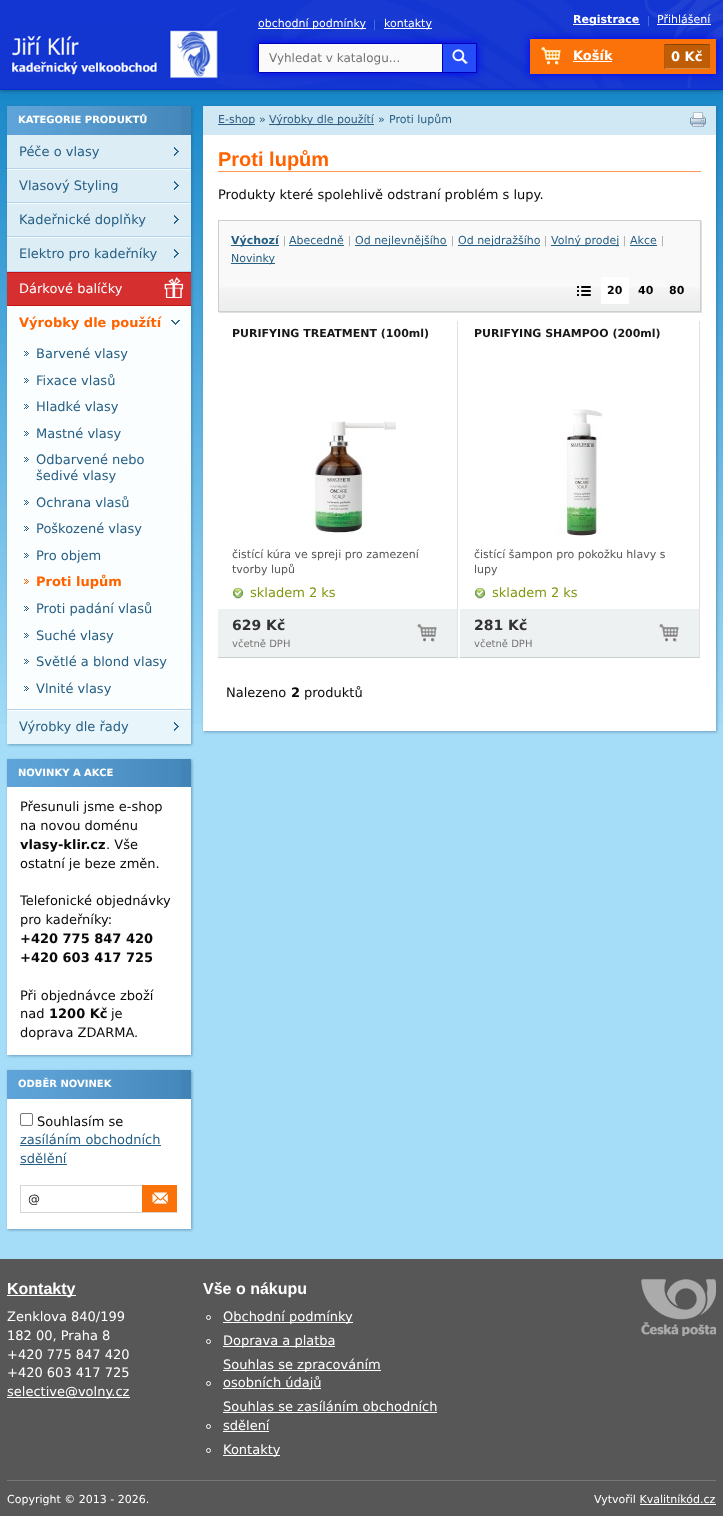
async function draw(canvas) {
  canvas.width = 723
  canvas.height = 1516
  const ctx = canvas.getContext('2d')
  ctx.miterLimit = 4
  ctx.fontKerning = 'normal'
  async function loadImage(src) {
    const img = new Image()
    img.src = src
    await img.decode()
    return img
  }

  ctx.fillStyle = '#a5ddf8'
  ctx.fillRect(0, 0, 723, 1516)
  ctx.drawImage(await loadImage('image0.png'), 0, 90, 723, 634)
  ctx.fillStyle = '#00000073'
  ctx.filter = 'blur(2.5px)'
  ctx.beginPath()
  ctx.rect(0, 0, 723, 90)
  ctx.fill()
  ctx.filter = 'none'
  ctx.fillStyle = '#1335d1'
  ctx.fillRect(0, 0, 723, 89)
  ctx.fillStyle = '#082cce'
  ctx.fillRect(0, 89, 723, 1)
  ctx.drawImage(await loadImage('image1.png'), 198, 0, 525, 88)
  ctx.drawImage(await loadImage('image2.png'), 11, 27, 209, 54)
  ctx.fillStyle = '#fff'
  ctx.fillRect(258, 28, 108, 1)
  ctx.font = '11px DejaVu Sans'
  ctx.fillText('obchodní podmínky', 258, 27)
  ctx.font = '11px Liberation Sans'
  ctx.fillStyle = '#4179d5'
  ctx.fillText('|', 373, 28)
  ctx.fillStyle = '#fff'
  ctx.fillRect(384, 28, 48, 1)
  ctx.font = '11px DejaVu Sans'
  ctx.fillText('kontakty', 384, 27)
  ctx.fillStyle = '#00f'
  ctx.filter = 'blur(4px)'
  ctx.beginPath()
  ctx.rect(258, 43, 219, 30)
  ctx.fill()
  ctx.filter = 'none'
  ctx.fillStyle = '#fafafa'
  ctx.beginPath()
  ctx.rect(258.5, 43.5, 184, 29)
  ctx.fill()
  ctx.strokeStyle = '#0101b3'
  ctx.stroke()
  ctx.font = '12px DejaVu Sans'
  ctx.fillStyle = '#757575'
  ctx.fillText('Vyhledat v katalogu...', 269, 62)
  ctx.fillStyle = '#244df8'
  ctx.beginPath()
  ctx.rect(442.5, 43.5, 34, 29)
  ctx.fill()
  ctx.stroke()
  ctx.drawImage(await loadImage('image3.png'), 452, 49, 16, 15)
  ctx.fillStyle = '#fff'
  ctx.fillRect(573, 24, 67, 1)
  ctx.font = 'bold 11px DejaVu Sans'
  ctx.fillText('Registrace', 573, 23)
  ctx.fillStyle = '#00f'
  ctx.filter = 'blur(4px)'
  ctx.beginPath()
  ctx.rect(530, 39, 186, 35)
  ctx.fill()
  ctx.filter = 'none'
  ctx.font = '11px Liberation Sans'
  ctx.fillStyle = '#4179d5'
  ctx.fillText('|', 647, 24)
  ctx.font = '11px DejaVu Sans'
  ctx.fillStyle = '#fff'
  ctx.fillText('Přihlášení', 657, 23)
  ctx.fillRect(657, 24, 54, 1)
  ctx.fillStyle = '#fc720a'
  ctx.fillRect(530, 39, 186, 35)
  ctx.drawImage(await loadImage('image4.png'), 541, 47, 20, 18)
  ctx.font = 'bold 13px DejaVu Sans'
  ctx.fillStyle = '#fff'
  ctx.fillText('Košík', 573, 60)
  ctx.fillRect(573, 61, 39, 1)
  ctx.fillStyle = '#be5d05'
  ctx.fillRect(665, 45, 44, 23)
  ctx.fillStyle = '#884204'
  ctx.fillRect(664, 44, 46, 1)
  ctx.fillStyle = '#b65905'
  ctx.fillRect(709, 44, 1, 25)
  ctx.fillStyle = '#d08b4c'
  ctx.fillRect(664, 68, 46, 1)
  ctx.fillStyle = '#b65905'
  ctx.fillRect(664, 44, 1, 25)
  ctx.fillStyle = '#fff'
  ctx.fillText('0 Kč', 671, 61)
  ctx.fillStyle = '#264f7b73'
  ctx.filter = 'blur(1.5px)'
  ctx.beginPath()
  ctx.rect(8, 107, 184, 638)
  ctx.fill()
  ctx.filter = 'none'
  ctx.fillStyle = '#4284b6'
  ctx.fillRect(181, 106, 10, 29)
  ctx.drawImage(await loadImage('image5.png'), 7, 106, 174, 29)
  ctx.font = 'bold 10px DejaVu Sans'
  ctx.fillStyle = '#fff'
  ctx.fillText('KATEGORIE PRODUKTŮ', 18, 123)
  ctx.fillStyle = '#ddedf6'
  ctx.fillRect(7, 135, 184, 136)
  ctx.fillStyle = '#b5d4ec'
  ctx.fillRect(7, 168, 184, 1)
  ctx.font = '13px DejaVu Sans'
  ctx.fillStyle = '#265f84'
  ctx.fillText('Péče o vlasy', 19, 156)
  ctx.drawImage(await loadImage('image6.png'), 174, 147, 5, 9)
  ctx.fillStyle = '#f4fbfe'
  ctx.fillRect(7, 169, 184, 1)
  ctx.fillStyle = '#b5d4ec'
  ctx.fillRect(7, 202, 184, 1)
  ctx.fillStyle = '#265f84'
  ctx.fillText('Vlasový Styling', 19, 190)
  ctx.drawImage(await loadImage('image6.png'), 174, 181, 5, 9)
  ctx.fillStyle = '#f4fbfe'
  ctx.fillRect(7, 203, 184, 1)
  ctx.fillStyle = '#b5d4ec'
  ctx.fillRect(7, 236, 184, 1)
  ctx.fillStyle = '#265f84'
  ctx.fillText('Kadeřnické doplňky', 19, 224)
  ctx.drawImage(await loadImage('image6.png'), 174, 215, 5, 9)
  ctx.fillStyle = '#f4fbfe'
  ctx.fillRect(7, 237, 184, 1)
  ctx.fillStyle = '#b5d4ec'
  ctx.fillRect(7, 271, 184, 1)
  ctx.fillStyle = '#265f84'
  ctx.fillText('Elektro pro kadeřníky', 19, 258)
  ctx.drawImage(await loadImage('image6.png'), 174, 249, 5, 9)
  ctx.fillStyle = '#d62f2f'
  ctx.fillRect(7, 273, 184, 32)
  ctx.fillStyle = '#c91212'
  ctx.fillRect(7, 272, 184, 1)
  ctx.fillStyle = '#c31313'
  ctx.fillRect(7, 305, 184, 1)
  ctx.fillStyle = '#fff'
  ctx.fillText('Dárkové balíčky', 19, 293)
  ctx.drawImage(await loadImage('image7.png'), 164, 277, 20, 21)
  ctx.fillStyle = '#fcfcfc'
  ctx.fillRect(7, 306, 184, 1)
  ctx.fillStyle = '#fbfeff'
  ctx.fillRect(7, 307, 184, 402)
  ctx.font = 'bold 13px DejaVu Sans'
  ctx.fillStyle = '#ff6300'
  ctx.fillText('Výrobky dle použítí', 19, 327)
  ctx.drawImage(await loadImage('image8.png'), 171, 320, 9, 5)
  ctx.fillStyle = '#b5d4ec'
  ctx.fillRect(7, 709, 184, 1)
  ctx.drawImage(await loadImage('image9.png'), 24, 351, 5, 5)
  ctx.font = '13px DejaVu Sans'
  ctx.fillStyle = '#265f84'
  ctx.fillText('Barvené vlasy', 36, 358)
  ctx.drawImage(await loadImage('image9.png'), 24, 378, 5, 5)
  ctx.fillText('Fixace vlasů', 36, 385)
  ctx.drawImage(await loadImage('image9.png'), 24, 404, 5, 5)
  ctx.fillText('Hladké vlasy', 36, 411)
  ctx.drawImage(await loadImage('image9.png'), 24, 431, 5, 5)
  ctx.fillText('Mastné vlasy', 36, 438)
  ctx.drawImage(await loadImage('image9.png'), 24, 457, 5, 5)
  ctx.fillText('Odbarvené nebo', 36, 464)
  ctx.fillText('šedivé vlasy', 36, 480)
  ctx.drawImage(await loadImage('image9.png'), 24, 500, 5, 5)
  ctx.fillText('Ochrana vlasů', 36, 507)
  ctx.drawImage(await loadImage('image9.png'), 24, 526, 5, 5)
  ctx.fillText('Poškozené vlasy', 36, 533)
  ctx.drawImage(await loadImage('image9.png'), 24, 553, 5, 5)
  ctx.fillText('Pro objem', 36, 560)
  ctx.drawImage(await loadImage('image10.png'), 24, 579, 5, 5)
  ctx.font = 'bold 13px DejaVu Sans'
  ctx.fillStyle = '#ff6300'
  ctx.fillText('Proti lupům', 36, 586)
  ctx.drawImage(await loadImage('image9.png'), 24, 606, 5, 5)
  ctx.font = '13px DejaVu Sans'
  ctx.fillStyle = '#265f84'
  ctx.fillText('Proti padání vlasů', 36, 613)
  ctx.drawImage(await loadImage('image9.png'), 24, 633, 5, 5)
  ctx.fillText('Suché vlasy', 36, 640)
  ctx.drawImage(await loadImage('image9.png'), 24, 659, 5, 5)
  ctx.fillText('Světlé a blond vlasy', 36, 666)
  ctx.drawImage(await loadImage('image9.png'), 24, 686, 5, 5)
  ctx.fillText('Vlnité vlasy', 36, 693)
  ctx.fillStyle = '#e8f5fb'
  ctx.fillRect(7, 711, 184, 33)
  ctx.fillStyle = '#fcfcfc'
  ctx.fillRect(7, 710, 184, 1)
  ctx.fillStyle = '#265f84'
  ctx.fillText('Výrobky dle řady', 19, 731)
  ctx.drawImage(await loadImage('image11.png'), 174, 722, 5, 9)
  ctx.fillStyle = '#264f7b73'
  ctx.filter = 'blur(1.5px)'
  ctx.beginPath()
  ctx.rect(8, 760, 184, 296)
  ctx.fill()
  ctx.filter = 'none'
  ctx.fillStyle = '#4284b6'
  ctx.fillRect(181, 759, 10, 28)
  ctx.drawImage(await loadImage('image12.png'), 7, 759, 174, 28)
  ctx.font = 'bold 10px DejaVu Sans'
  ctx.fillStyle = '#fff'
  ctx.fillText('NOVINKY A AKCE', 18, 776)
  ctx.fillRect(7, 787, 184, 268)
  ctx.font = '13px DejaVu Sans'
  ctx.fillStyle = '#090909'
  ctx.fillText('Přesunuli jsme e-shop', 20, 811)
  ctx.fillText('na novou doménu', 20, 830)
  ctx.font = 'bold 13px DejaVu Sans'
  ctx.fillText('vlasy-klir.cz', 20, 849)
  ctx.font = '13px DejaVu Sans'
  ctx.fillText('. Vše', 106, 849)
  ctx.fillText('ostatní je beze změn.', 20, 868)
  ctx.fillText('Telefonické objednávky', 20, 905)
  ctx.fillText('pro kadeřníky:', 20, 924)
  ctx.font = 'bold 13px DejaVu Sans'
  ctx.fillText('+420 775 847 420', 20, 943)
  ctx.fillText('+420 603 417 725', 20, 962)
  ctx.font = '13px DejaVu Sans'
  ctx.fillText('Při objednávce zboží', 20, 1000)
  ctx.fillText('nad', 20, 1018)
  ctx.font = 'bold 13px DejaVu Sans'
  ctx.fillText('1200 Kč', 49, 1018)
  ctx.font = '13px DejaVu Sans'
  ctx.fillText('je', 111, 1018)
  ctx.fillText('doprava ZDARMA.', 20, 1037)
  ctx.fillStyle = '#264f7b73'
  ctx.filter = 'blur(1.5px)'
  ctx.beginPath()
  ctx.rect(8, 1071, 184, 159)
  ctx.fill()
  ctx.filter = 'none'
  ctx.fillStyle = '#4284b6'
  ctx.fillRect(181, 1070, 10, 29)
  ctx.drawImage(await loadImage('image5.png'), 7, 1070, 174, 29)
  ctx.font = 'bold 10px DejaVu Sans'
  ctx.fillStyle = '#fff'
  ctx.fillText('ODBĚR NOVINEK', 18, 1087)
  ctx.fillRect(7, 1099, 184, 130)
  ctx.beginPath()
  ctx.roundRect(20.5, 1113.5, 12, 12, 1.5)
  ctx.strokeStyle = '#767676'
  ctx.stroke()
  ctx.font = '13px DejaVu Sans'
  ctx.fillStyle = '#090909'
  ctx.fillText('Souhlasím se', 37, 1126)
  ctx.fillStyle = '#265f84'
  ctx.fillText('zasíláním obchodních', 20, 1144)
  ctx.fillRect(20, 1145, 141, 1)
  ctx.fillText('sdělění', 20, 1163)
  ctx.fillRect(20, 1164, 47, 1)
  ctx.strokeStyle = '#d6d6d6'
  ctx.strokeRect(20.5, 1185.5, 156, 27)
  ctx.font = '12px DejaVu Sans'
  ctx.fillStyle = '#181818'
  ctx.fillText('@', 28, 1203)
  ctx.fillStyle = '#fc720a'
  ctx.fillRect(142, 1185, 35, 27)
  ctx.drawImage(await loadImage('image13.png'), 152, 1192, 16, 12)
  ctx.fillStyle = '#264f7b73'
  ctx.filter = 'blur(1.5px)'
  ctx.beginPath()
  ctx.rect(204, 107, 513, 625)
  ctx.fill()
  ctx.filter = 'none'
  ctx.fillStyle = '#fff'
  ctx.fillRect(203, 135, 513, 596)
  ctx.fillStyle = '#d0e7f4'
  ctx.fillRect(203, 106, 513, 29)
  ctx.fillStyle = '#2f5e80'
  ctx.fillRect(218, 124, 37, 1)
  ctx.font = '11px DejaVu Sans'
  ctx.fillText('E-shop', 218, 123)
  ctx.fillStyle = '#265f84'
  ctx.fillText('»', 259, 123)
  ctx.fillStyle = '#2f5e80'
  ctx.fillRect(269, 124, 105, 1)
  ctx.fillText('Výrobky dle použítí', 269, 123)
  ctx.fillStyle = '#265f84'
  ctx.fillText('»', 378, 123)
  ctx.fillText('Proti lupům', 389, 123)
  ctx.drawImage(await loadImage('image14.png'), 690, 112, 16, 15)
  ctx.fillStyle = '#ff9853'
  ctx.fillRect(218, 171, 483, 1)
  ctx.font = 'bold 20px Liberation Sans'
  ctx.fillStyle = '#ff6300'
  ctx.fillText('Proti lupům', 218, 166)
  ctx.font = '13px DejaVu Sans'
  ctx.fillStyle = '#090909'
  ctx.fillText('Produkty které spolehlivě odstraní problém s lupy.', 218, 199)
  ctx.fillStyle = '#dfdfdf'
  ctx.filter = 'blur(0.5px)'
  ctx.beginPath()
  ctx.rect(219, 221, 483, 92)
  ctx.fill()
  ctx.filter = 'none'
  ctx.fillStyle = '#f9f9f9'
  ctx.fillRect(219, 221, 481, 66)
  ctx.drawImage(await loadImage('image15.png'), 219, 287, 481, 24)
  ctx.strokeStyle = '#cad0d0'
  ctx.strokeRect(218.5, 220.5, 482, 91)
  ctx.fillStyle = '#265f84'
  ctx.fillRect(231, 245, 48, 1)
  ctx.font = 'bold 11px DejaVu Sans'
  ctx.fillText('Výchozí', 231, 244)
  ctx.font = '11px Liberation Sans'
  ctx.fillStyle = '#aaa'
  ctx.fillText('|', 283, 244)
  ctx.font = '11px DejaVu Sans'
  ctx.fillStyle = '#265f84'
  ctx.fillText('Abecedně', 289, 244)
  ctx.fillRect(289, 245, 55, 1)
  ctx.font = '11px Liberation Sans'
  ctx.fillStyle = '#aaa'
  ctx.fillText('|', 348, 244)
  ctx.fillStyle = '#265f84'
  ctx.fillRect(355, 245, 92, 1)
  ctx.font = '11px DejaVu Sans'
  ctx.fillText('Od nejlevnějšího', 355, 244)
  ctx.font = '11px Liberation Sans'
  ctx.fillStyle = '#aaa'
  ctx.fillText('|', 451, 244)
  ctx.fillStyle = '#265f84'
  ctx.fillRect(458, 245, 82, 1)
  ctx.font = '11px DejaVu Sans'
  ctx.fillText('Od nejdražšího', 458, 244)
  ctx.font = '11px Liberation Sans'
  ctx.fillStyle = '#aaa'
  ctx.fillText('|', 544, 244)
  ctx.fillStyle = '#265f84'
  ctx.fillRect(551, 245, 68, 1)
  ctx.font = '11px DejaVu Sans'
  ctx.fillText('Volný prodej', 551, 244)
  ctx.font = '11px Liberation Sans'
  ctx.fillStyle = '#aaa'
  ctx.fillText('|', 623, 244)
  ctx.font = '11px DejaVu Sans'
  ctx.fillStyle = '#265f84'
  ctx.fillText('Akce', 630, 244)
  ctx.fillRect(630, 245, 27, 1)
  ctx.font = '11px Liberation Sans'
  ctx.fillStyle = '#aaa'
  ctx.fillText('|', 661, 244)
  ctx.fillStyle = '#265f84'
  ctx.fillRect(231, 263, 44, 1)
  ctx.font = '11px DejaVu Sans'
  ctx.fillText('Novinky', 231, 262)
  ctx.drawImage(await loadImage('image16.png'), 577, 286, 14, 10)
  ctx.fillStyle = '#00000040'
  ctx.filter = 'blur(0.5px)'
  ctx.beginPath()
  ctx.rect(601, 277, 28, 27)
  ctx.fill()
  ctx.filter = 'none'
  ctx.fillStyle = '#fff'
  ctx.fillRect(601, 277, 28, 27)
  ctx.font = 'bold 11px DejaVu Sans'
  ctx.fillStyle = '#000'
  ctx.fillText('20', 607, 294)
  ctx.fillText('40', 638, 294)
  ctx.fillText('80', 669, 294)
  ctx.fillStyle = '#dee2e2'
  ctx.fillRect(457, 321, 1, 337)
  ctx.fillStyle = '#cbd1d1'
  ctx.fillRect(218, 657, 240, 1)
  ctx.fillStyle = '#181818'
  ctx.fillText('PURIFYING TREATMENT (100ml)', 232, 337)
  ctx.drawImage(await loadImage('image17.png'), 312, 421, 84, 114)
  ctx.font = '11px DejaVu Sans'
  ctx.fillStyle = '#575757'
  ctx.fillText('čistící kúra ve spreji pro zamezení', 232, 558)
  ctx.fillText('tvorby lupů', 232, 573)
  ctx.drawImage(await loadImage('image18.png'), 233, 588, 10, 11)
  ctx.font = '13px DejaVu Sans'
  ctx.fillStyle = '#819812'
  ctx.fillText('skladem 2 ks', 250, 597)
  ctx.fillStyle = '#eef1f1'
  ctx.fillRect(218, 609, 239, 48)
  ctx.font = 'bold 14px DejaVu Sans'
  ctx.fillStyle = '#333'
  ctx.fillText('629 Kč', 232, 630)
  ctx.drawImage(await loadImage('image19.png'), 417, 624, 20, 18)
  ctx.font = '10px DejaVu Sans'
  ctx.fillStyle = '#757575'
  ctx.fillText('včetně DPH', 232, 647)
  ctx.fillStyle = '#dee2e2'
  ctx.fillRect(699, 321, 1, 337)
  ctx.fillStyle = '#cbd1d1'
  ctx.fillRect(460, 657, 240, 1)
  ctx.font = 'bold 11px DejaVu Sans'
  ctx.fillStyle = '#181818'
  ctx.fillText('PURIFYING SHAMPOO (200ml)', 474, 337)
  ctx.drawImage(await loadImage('image20.png'), 556, 409, 48, 127)
  ctx.font = '11px DejaVu Sans'
  ctx.fillStyle = '#575757'
  ctx.fillText('čistící šampon pro pokožku hlavy s', 474, 558)
  ctx.fillText('lupy', 474, 573)
  ctx.drawImage(await loadImage('image18.png'), 475, 588, 10, 11)
  ctx.font = '13px DejaVu Sans'
  ctx.fillStyle = '#819812'
  ctx.fillText('skladem 2 ks', 492, 597)
  ctx.fillStyle = '#eef1f1'
  ctx.fillRect(460, 609, 239, 48)
  ctx.font = 'bold 14px DejaVu Sans'
  ctx.fillStyle = '#333'
  ctx.fillText('281 Kč', 474, 630)
  ctx.drawImage(await loadImage('image19.png'), 659, 624, 20, 18)
  ctx.font = '10px DejaVu Sans'
  ctx.fillStyle = '#757575'
  ctx.fillText('včetně DPH', 474, 647)
  ctx.font = '13px DejaVu Sans'
  ctx.fillStyle = '#090909'
  ctx.fillText('Nalezeno', 226, 697)
  ctx.font = 'bold 13px DejaVu Sans'
  ctx.fillText('2', 291, 697)
  ctx.font = '13px DejaVu Sans'
  ctx.fillText('produktů', 304, 697)
  ctx.fillStyle = '#575757'
  ctx.fillRect(0, 1259, 723, 257)
  ctx.fillStyle = '#fff'
  ctx.fillRect(7, 1295, 69, 1)
  ctx.font = 'bold 16px Liberation Sans'
  ctx.fillText('Kontakty', 7, 1294)
  ctx.font = '13px DejaVu Sans'
  ctx.fillText('Zenklova 840/199', 7, 1321)
  ctx.fillText('182 00, Praha 8', 7, 1340)
  ctx.fillText('+420 775 847 420', 7, 1359)
  ctx.fillText('+420 603 417 725', 7, 1377)
  ctx.fillRect(7, 1397, 123, 1)
  ctx.fillText('selective@volny.cz', 7, 1396)
  ctx.font = 'bold 16px Liberation Sans'
  ctx.fillText('Vše o nákupu', 203, 1294)
  ctx.beginPath()
  ctx.arc(208.5, 1317.5, 2, 0, 2 * Math.PI)
  ctx.strokeStyle = '#fff'
  ctx.stroke()
  ctx.fillRect(223, 1322, 130, 1)
  ctx.font = '13px DejaVu Sans'
  ctx.fillText('Obchodní podmínky', 223, 1321)
  ctx.beginPath()
  ctx.arc(208.5, 1341.5, 2, 0, 2 * Math.PI)
  ctx.stroke()
  ctx.fillRect(223, 1346, 112, 1)
  ctx.fillText('Doprava a platba', 223, 1345)
  ctx.beginPath()
  ctx.arc(208.5, 1383.5, 2, 0, 2 * Math.PI)
  ctx.stroke()
  ctx.fillRect(223, 1370, 158, 1)
  ctx.fillText('Souhlas se zpracováním', 223, 1369)
  ctx.fillRect(223, 1388, 98, 1)
  ctx.fillText('osobních údajů', 223, 1387)
  ctx.beginPath()
  ctx.arc(208.5, 1426.5, 2, 0, 2 * Math.PI)
  ctx.stroke()
  ctx.fillText('Souhlas se zasíláním obchodních', 223, 1411)
  ctx.fillRect(223, 1412, 214, 1)
  ctx.fillText('sdělení', 223, 1430)
  ctx.fillRect(223, 1431, 46, 1)
  ctx.beginPath()
  ctx.arc(208.5, 1450.5, 2, 0, 2 * Math.PI)
  ctx.stroke()
  ctx.fillRect(223, 1455, 57, 1)
  ctx.fillText('Kontakty', 223, 1454)
  ctx.drawImage(await loadImage('image21.png'), 641, 1279, 75, 57)
  ctx.fillStyle = '#777'
  ctx.fillRect(7, 1480, 709, 1)
  ctx.font = '11px DejaVu Sans'
  ctx.fillStyle = '#fff'
  ctx.fillText('Copyright © 2013 - 2026.', 7, 1503)
  ctx.fillText('Vytvořil Kvalitníkód.cz', 594, 1503)
  ctx.fillRect(640, 1504, 76, 1)
}

draw(document.querySelector('canvas'))
